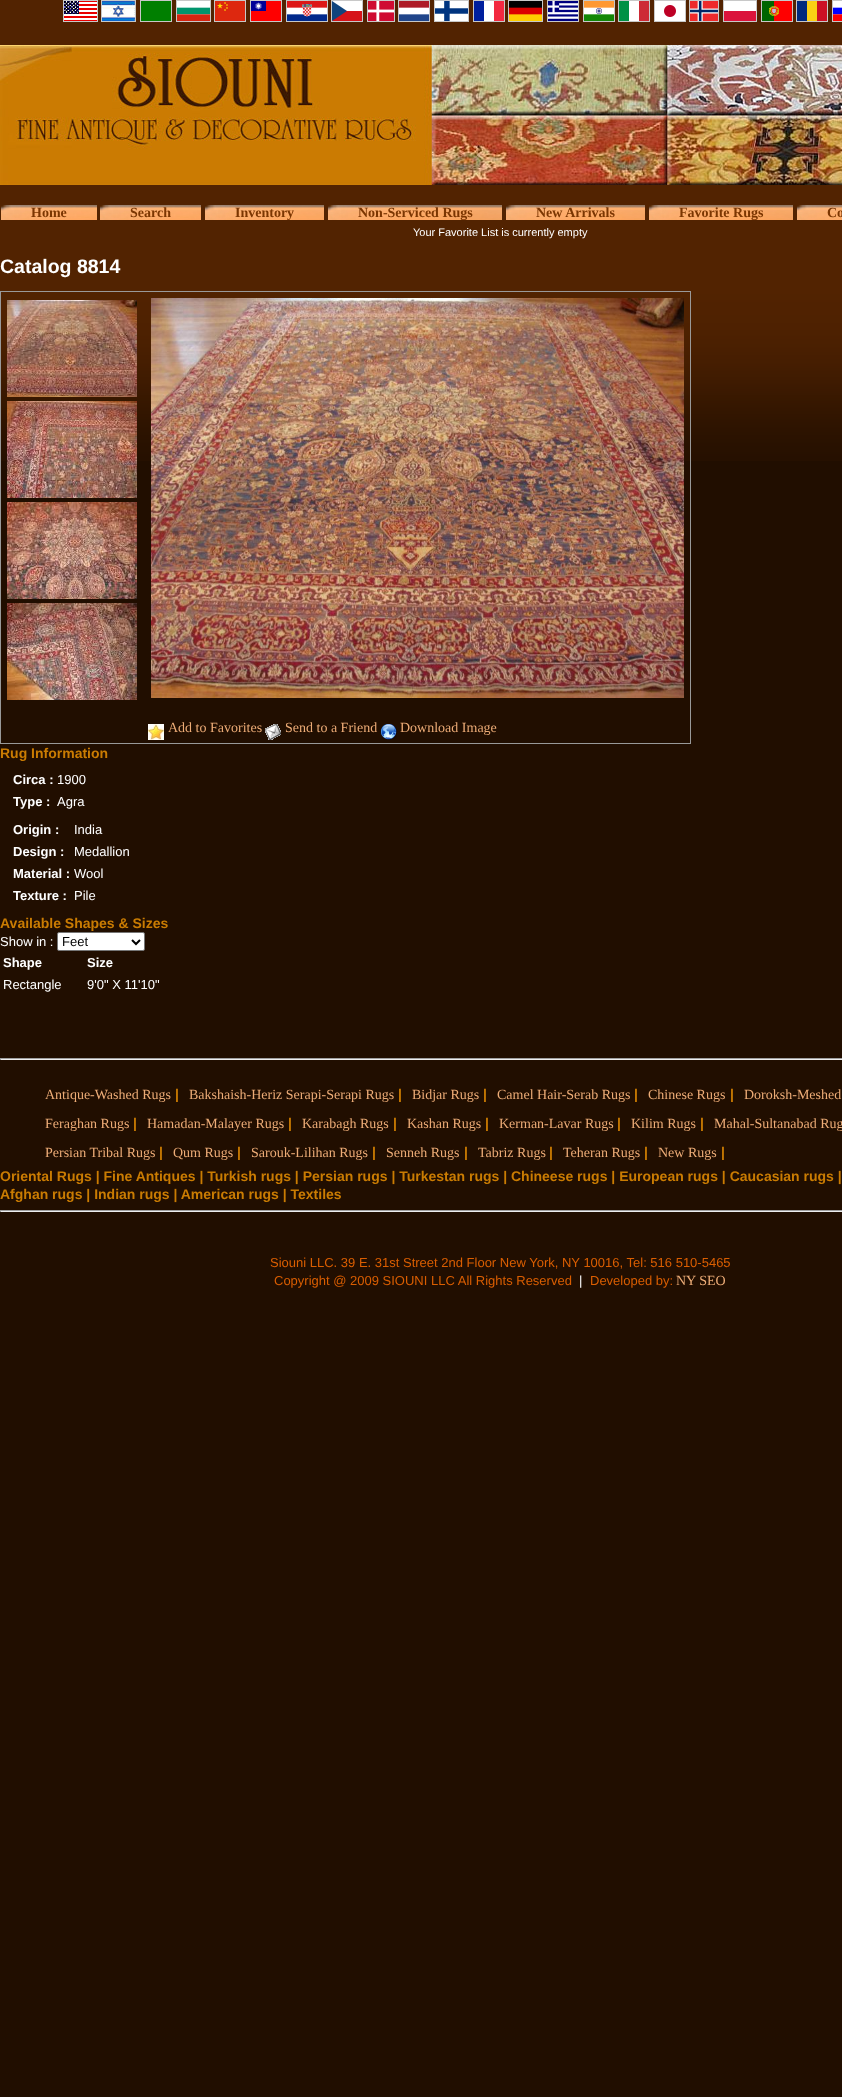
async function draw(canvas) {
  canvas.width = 842
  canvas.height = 2097
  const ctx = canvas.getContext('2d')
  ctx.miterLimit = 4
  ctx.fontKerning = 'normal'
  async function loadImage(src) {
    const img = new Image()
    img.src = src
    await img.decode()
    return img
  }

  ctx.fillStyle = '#210e00'
  ctx.fillRect(0, 0, 842, 2097)
  ctx.drawImage(await loadImage('image0.png'), 0, 0, 842, 461)
  ctx.strokeStyle = '#c8c8c8'
  ctx.strokeRect(63.5, 0.5, 34, 21)
  ctx.strokeRect(101.5, 0.5, 34, 21)
  ctx.strokeRect(140.5, 0.5, 31, 21)
  ctx.strokeRect(176.5, 0.5, 34, 21)
  ctx.strokeRect(214.5, 0.5, 31, 21)
  ctx.strokeRect(250.5, 0.5, 31, 21)
  ctx.strokeRect(286.5, 0.5, 41, 21)
  ctx.strokeRect(331.5, 0.5, 31, 21)
  ctx.strokeRect(367.5, 0.5, 27, 21)
  ctx.strokeRect(398.5, 0.5, 31, 21)
  ctx.strokeRect(434.5, 0.5, 34, 21)
  ctx.strokeRect(473.5, 0.5, 31, 21)
  ctx.strokeRect(508.5, 0.5, 34, 21)
  ctx.strokeRect(547.5, 0.5, 31, 21)
  ctx.strokeRect(583.5, 0.5, 31, 21)
  ctx.strokeRect(618.5, 0.5, 31, 21)
  ctx.strokeRect(654.5, 0.5, 31, 21)
  ctx.strokeRect(689.5, 0.5, 29, 21)
  ctx.strokeRect(723.5, 0.5, 33, 21)
  ctx.strokeRect(761.5, 0.5, 31, 21)
  ctx.strokeRect(796.5, 0.5, 31, 21)
  ctx.strokeRect(832.5, 0.5, 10, 21)
  ctx.drawImage(await loadImage('image1.png'), 64, 1, 33, 20)
  ctx.drawImage(await loadImage('image2.png'), 102, 1, 33, 20)
  ctx.fillStyle = '#007f00'
  ctx.fillRect(141, 1, 30, 20)
  ctx.drawImage(await loadImage('image3.png'), 177, 1, 33, 20)
  ctx.drawImage(await loadImage('image4.png'), 215, 1, 30, 20)
  ctx.drawImage(await loadImage('image5.png'), 251, 1, 30, 20)
  ctx.drawImage(await loadImage('image6.png'), 287, 1, 40, 20)
  ctx.drawImage(await loadImage('image7.png'), 332, 1, 30, 20)
  ctx.drawImage(await loadImage('image8.png'), 368, 1, 26, 20)
  ctx.drawImage(await loadImage('image9.png'), 399, 1, 30, 20)
  ctx.drawImage(await loadImage('image10.png'), 435, 1, 33, 20)
  ctx.drawImage(await loadImage('image11.png'), 474, 1, 30, 20)
  ctx.drawImage(await loadImage('image12.png'), 509, 1, 33, 20)
  ctx.drawImage(await loadImage('image13.png'), 548, 1, 30, 20)
  ctx.drawImage(await loadImage('image14.png'), 584, 1, 30, 20)
  ctx.drawImage(await loadImage('image15.png'), 619, 1, 30, 20)
  ctx.drawImage(await loadImage('image16.png'), 655, 1, 30, 20)
  ctx.drawImage(await loadImage('image17.png'), 690, 1, 28, 20)
  ctx.drawImage(await loadImage('image18.png'), 724, 1, 32, 20)
  ctx.drawImage(await loadImage('image19.png'), 762, 1, 30, 20)
  ctx.drawImage(await loadImage('image20.png'), 797, 1, 30, 20)
  ctx.drawImage(await loadImage('image21.png'), 833, 1, 9, 20)
  ctx.drawImage(await loadImage('image22.png'), 0, 45, 842, 140)
  ctx.drawImage(await loadImage('image23.png'), 1, 205, 96, 15)
  ctx.drawImage(await loadImage('image24.png'), 100, 205, 101, 15)
  ctx.drawImage(await loadImage('image25.png'), 205, 205, 119, 15)
  ctx.drawImage(await loadImage('image26.png'), 328, 205, 174, 15)
  ctx.drawImage(await loadImage('image27.png'), 506, 205, 139, 15)
  ctx.drawImage(await loadImage('image28.png'), 649, 205, 144, 15)
  ctx.drawImage(await loadImage('image29.png'), 797, 205, 45, 15)
  ctx.font = 'bold 14px Liberation Serif'
  ctx.fillStyle = '#7b3602'
  ctx.fillText('Home', 31, 217)
  ctx.fillText('Search', 130, 217)
  ctx.fillText('Inventory', 235, 217)
  ctx.fillText('Non-Serviced Rugs', 358, 217)
  ctx.fillText('New Arrivals', 536, 217)
  ctx.fillText('Favorite Rugs', 679, 217)
  ctx.fillText('Co', 827, 217)
  ctx.font = '11px Liberation Sans'
  ctx.fillStyle = '#fff'
  ctx.fillText('Your Favorite List is currently empty', 413, 236)
  ctx.font = 'bold 19.5px Liberation Sans'
  ctx.fillText('Catalog 8814', 0, 273)
  ctx.strokeStyle = '#999'
  ctx.strokeRect(0.5, 291.5, 690, 452)
  ctx.drawImage(await loadImage('image30.png'), 7, 300, 130, 97)
  ctx.drawImage(await loadImage('image31.png'), 7, 401, 130, 97)
  ctx.drawImage(await loadImage('image32.png'), 7, 502, 130, 97)
  ctx.drawImage(await loadImage('image33.png'), 7, 603, 130, 97)
  ctx.drawImage(await loadImage('image34.png'), 151, 298, 533, 400)
  ctx.drawImage(await loadImage('image35.png'), 148, 724, 16, 16)
  ctx.font = '14px Liberation Serif'
  ctx.fillStyle = '#edac76'
  ctx.fillText('Add to Favorites', 168, 732)
  ctx.drawImage(await loadImage('image36.png'), 265, 724, 16, 16)
  ctx.fillText('Send to a Friend', 285, 732)
  ctx.drawImage(await loadImage('image37.png'), 381, 724, 16, 16)
  ctx.fillText('Download Image', 400, 732)
  ctx.font = 'bold 14px Liberation Sans'
  ctx.fillStyle = '#ca7c02'
  ctx.fillText('Rug Information', 0, 758)
  ctx.font = 'bold 13px Liberation Sans'
  ctx.fillStyle = '#fff'
  ctx.fillText('Circa :', 13, 784)
  ctx.font = '13px Liberation Sans'
  ctx.fillText('1900', 57, 784)
  ctx.font = 'bold 13px Liberation Sans'
  ctx.fillText('Type :', 13, 806)
  ctx.font = '13px Liberation Sans'
  ctx.fillText('Agra', 57, 806)
  ctx.font = 'bold 13px Liberation Sans'
  ctx.fillText('Origin :', 13, 834)
  ctx.font = '13px Liberation Sans'
  ctx.fillText('India', 74, 834)
  ctx.font = 'bold 13px Liberation Sans'
  ctx.fillText('Design :', 13, 856)
  ctx.font = '13px Liberation Sans'
  ctx.fillText('Medallion', 74, 856)
  ctx.font = 'bold 13px Liberation Sans'
  ctx.fillText('Material :', 13, 878)
  ctx.font = '13px Liberation Sans'
  ctx.fillText('Wool', 74, 878)
  ctx.font = 'bold 13px Liberation Sans'
  ctx.fillText('Texture :', 13, 900)
  ctx.font = '13px Liberation Sans'
  ctx.fillText('Pile', 74, 900)
  ctx.font = 'bold 14px Liberation Sans'
  ctx.fillStyle = '#ca7c02'
  ctx.fillText('Available Shapes & Sizes', 0, 928)
  ctx.font = '13px Liberation Sans'
  ctx.fillStyle = '#fff'
  ctx.fillText('Show in :', 0, 946)
  ctx.beginPath()
  ctx.roundRect(57.5, 932.5, 87, 18, 1.5)
  ctx.fill()
  ctx.strokeStyle = '#767676'
  ctx.stroke()
  ctx.beginPath()
  ctx.moveTo(132, 940)
  ctx.lineTo(136, 944)
  ctx.lineTo(140, 940)
  ctx.strokeStyle = '#000'
  ctx.lineWidth = 2
  ctx.stroke()
  ctx.fillStyle = '#000'
  ctx.fillText('Feet', 62, 946)
  ctx.font = 'bold 13px Liberation Sans'
  ctx.fillStyle = '#fff'
  ctx.fillText('Shape', 3, 967)
  ctx.fillText('Size', 87, 967)
  ctx.font = '13px Liberation Sans'
  ctx.fillText('Rectangle', 3, 989)
  ctx.fillText('9\'0" X 11\'10"', 87, 989)
  ctx.fillStyle = '#9f9f9f'
  ctx.fillRect(0, 1058, 842, 1)
  ctx.fillStyle = '#eee'
  ctx.fillRect(0, 1059, 842, 1)
  ctx.fillStyle = '#9f9f9f'
  ctx.fillRect(0, 1058, 1, 2)
  ctx.font = '14px Liberation Serif'
  ctx.fillStyle = '#edac76'
  ctx.fillText('Antique-Washed Rugs', 45, 1099)
  ctx.font = 'bold 14px Liberation Sans'
  ctx.fillStyle = '#ca7c02'
  ctx.fillText('|', 175, 1099)
  ctx.font = '14px Liberation Serif'
  ctx.fillStyle = '#edac76'
  ctx.fillText('Bakshaish-Heriz Serapi-Serapi Rugs', 189, 1099)
  ctx.font = 'bold 14px Liberation Sans'
  ctx.fillStyle = '#ca7c02'
  ctx.fillText('|', 398, 1099)
  ctx.font = '14px Liberation Serif'
  ctx.fillStyle = '#edac76'
  ctx.fillText('Bidjar Rugs', 412, 1099)
  ctx.font = 'bold 14px Liberation Sans'
  ctx.fillStyle = '#ca7c02'
  ctx.fillText('|', 483, 1099)
  ctx.font = '14px Liberation Serif'
  ctx.fillStyle = '#edac76'
  ctx.fillText('Camel Hair-Serab Rugs', 497, 1099)
  ctx.font = 'bold 14px Liberation Sans'
  ctx.fillStyle = '#ca7c02'
  ctx.fillText('|', 634, 1099)
  ctx.font = '14px Liberation Serif'
  ctx.fillStyle = '#edac76'
  ctx.fillText('Chinese Rugs', 648, 1099)
  ctx.font = 'bold 14px Liberation Sans'
  ctx.fillStyle = '#ca7c02'
  ctx.fillText('|', 730, 1099)
  ctx.font = '14px Liberation Serif'
  ctx.fillStyle = '#edac76'
  ctx.fillText('Doroksh-Meshed', 744, 1099)
  ctx.fillText('Feraghan Rugs', 45, 1128)
  ctx.font = 'bold 14px Liberation Sans'
  ctx.fillStyle = '#ca7c02'
  ctx.fillText('|', 133, 1128)
  ctx.font = '14px Liberation Serif'
  ctx.fillStyle = '#edac76'
  ctx.fillText('Hamadan-Malayer Rugs', 147, 1128)
  ctx.font = 'bold 14px Liberation Sans'
  ctx.fillStyle = '#ca7c02'
  ctx.fillText('|', 288, 1128)
  ctx.font = '14px Liberation Serif'
  ctx.fillStyle = '#edac76'
  ctx.fillText('Karabagh Rugs', 302, 1128)
  ctx.font = 'bold 14px Liberation Sans'
  ctx.fillStyle = '#ca7c02'
  ctx.fillText('|', 393, 1128)
  ctx.font = '14px Liberation Serif'
  ctx.fillStyle = '#edac76'
  ctx.fillText('Kashan Rugs', 407, 1128)
  ctx.font = 'bold 14px Liberation Sans'
  ctx.fillStyle = '#ca7c02'
  ctx.fillText('|', 485, 1128)
  ctx.font = '14px Liberation Serif'
  ctx.fillStyle = '#edac76'
  ctx.fillText('Kerman-Lavar Rugs', 499, 1128)
  ctx.font = 'bold 14px Liberation Sans'
  ctx.fillStyle = '#ca7c02'
  ctx.fillText('|', 617, 1128)
  ctx.font = '14px Liberation Serif'
  ctx.fillStyle = '#edac76'
  ctx.fillText('Kilim Rugs', 631, 1128)
  ctx.font = 'bold 14px Liberation Sans'
  ctx.fillStyle = '#ca7c02'
  ctx.fillText('|', 700, 1128)
  ctx.font = '14px Liberation Serif'
  ctx.fillStyle = '#edac76'
  ctx.fillText('Mahal-Sultanabad Rug', 714, 1128)
  ctx.fillText('Persian Tribal Rugs', 45, 1157)
  ctx.font = 'bold 14px Liberation Sans'
  ctx.fillStyle = '#ca7c02'
  ctx.fillText('|', 159, 1157)
  ctx.font = '14px Liberation Serif'
  ctx.fillStyle = '#edac76'
  ctx.fillText('Qum Rugs', 173, 1157)
  ctx.font = 'bold 14px Liberation Sans'
  ctx.fillStyle = '#ca7c02'
  ctx.fillText('|', 237, 1157)
  ctx.font = '14px Liberation Serif'
  ctx.fillStyle = '#edac76'
  ctx.fillText('Sarouk-Lilihan Rugs', 251, 1157)
  ctx.font = 'bold 14px Liberation Sans'
  ctx.fillStyle = '#ca7c02'
  ctx.fillText('|', 372, 1157)
  ctx.font = '14px Liberation Serif'
  ctx.fillStyle = '#edac76'
  ctx.fillText('Senneh Rugs', 386, 1157)
  ctx.font = 'bold 14px Liberation Sans'
  ctx.fillStyle = '#ca7c02'
  ctx.fillText('|', 464, 1157)
  ctx.font = '14px Liberation Serif'
  ctx.fillStyle = '#edac76'
  ctx.fillText('Tabriz Rugs', 478, 1157)
  ctx.font = 'bold 14px Liberation Sans'
  ctx.fillStyle = '#ca7c02'
  ctx.fillText('|', 549, 1157)
  ctx.font = '14px Liberation Serif'
  ctx.fillStyle = '#edac76'
  ctx.fillText('Teheran Rugs', 563, 1157)
  ctx.font = 'bold 14px Liberation Sans'
  ctx.fillStyle = '#ca7c02'
  ctx.fillText('|', 644, 1157)
  ctx.font = '14px Liberation Serif'
  ctx.fillStyle = '#edac76'
  ctx.fillText('New Rugs', 658, 1157)
  ctx.font = 'bold 14px Liberation Sans'
  ctx.fillStyle = '#ca7c02'
  ctx.fillText('|', 721, 1157)
  ctx.fillText('Oriental Rugs | Fine Antiques | Turkish rugs | Persian rugs | Turkestan rugs | Chineese rugs | European rugs | Caucasian rugs |', 0, 1181)
  ctx.fillText('Afghan rugs | Indian rugs | American rugs | Textiles', 0, 1199)
  ctx.fillStyle = '#9f9f9f'
  ctx.fillRect(0, 1210, 842, 1)
  ctx.fillStyle = '#eee'
  ctx.fillRect(0, 1211, 842, 1)
  ctx.fillStyle = '#9f9f9f'
  ctx.fillRect(0, 1210, 1, 2)
  ctx.font = '13px Liberation Sans'
  ctx.fillStyle = '#da5e00'
  ctx.fillText('Siouni LLC. 39 E. 31st Street 2nd Floor New York, NY 10016, Tel: 516 510-5465', 270, 1267)
  ctx.fillText('Copyright @ 2009 SIOUNI LLC All Rights Reserved', 274, 1285)
  ctx.fillStyle = '#fff'
  ctx.fillText('|', 579, 1285)
  ctx.fillStyle = '#da5e00'
  ctx.fillText('Developed by:', 590, 1285)
  ctx.font = '14px Liberation Serif'
  ctx.fillStyle = '#edac76'
  ctx.fillText('NY SEO', 676, 1285)
}

draw(document.querySelector('canvas'))
